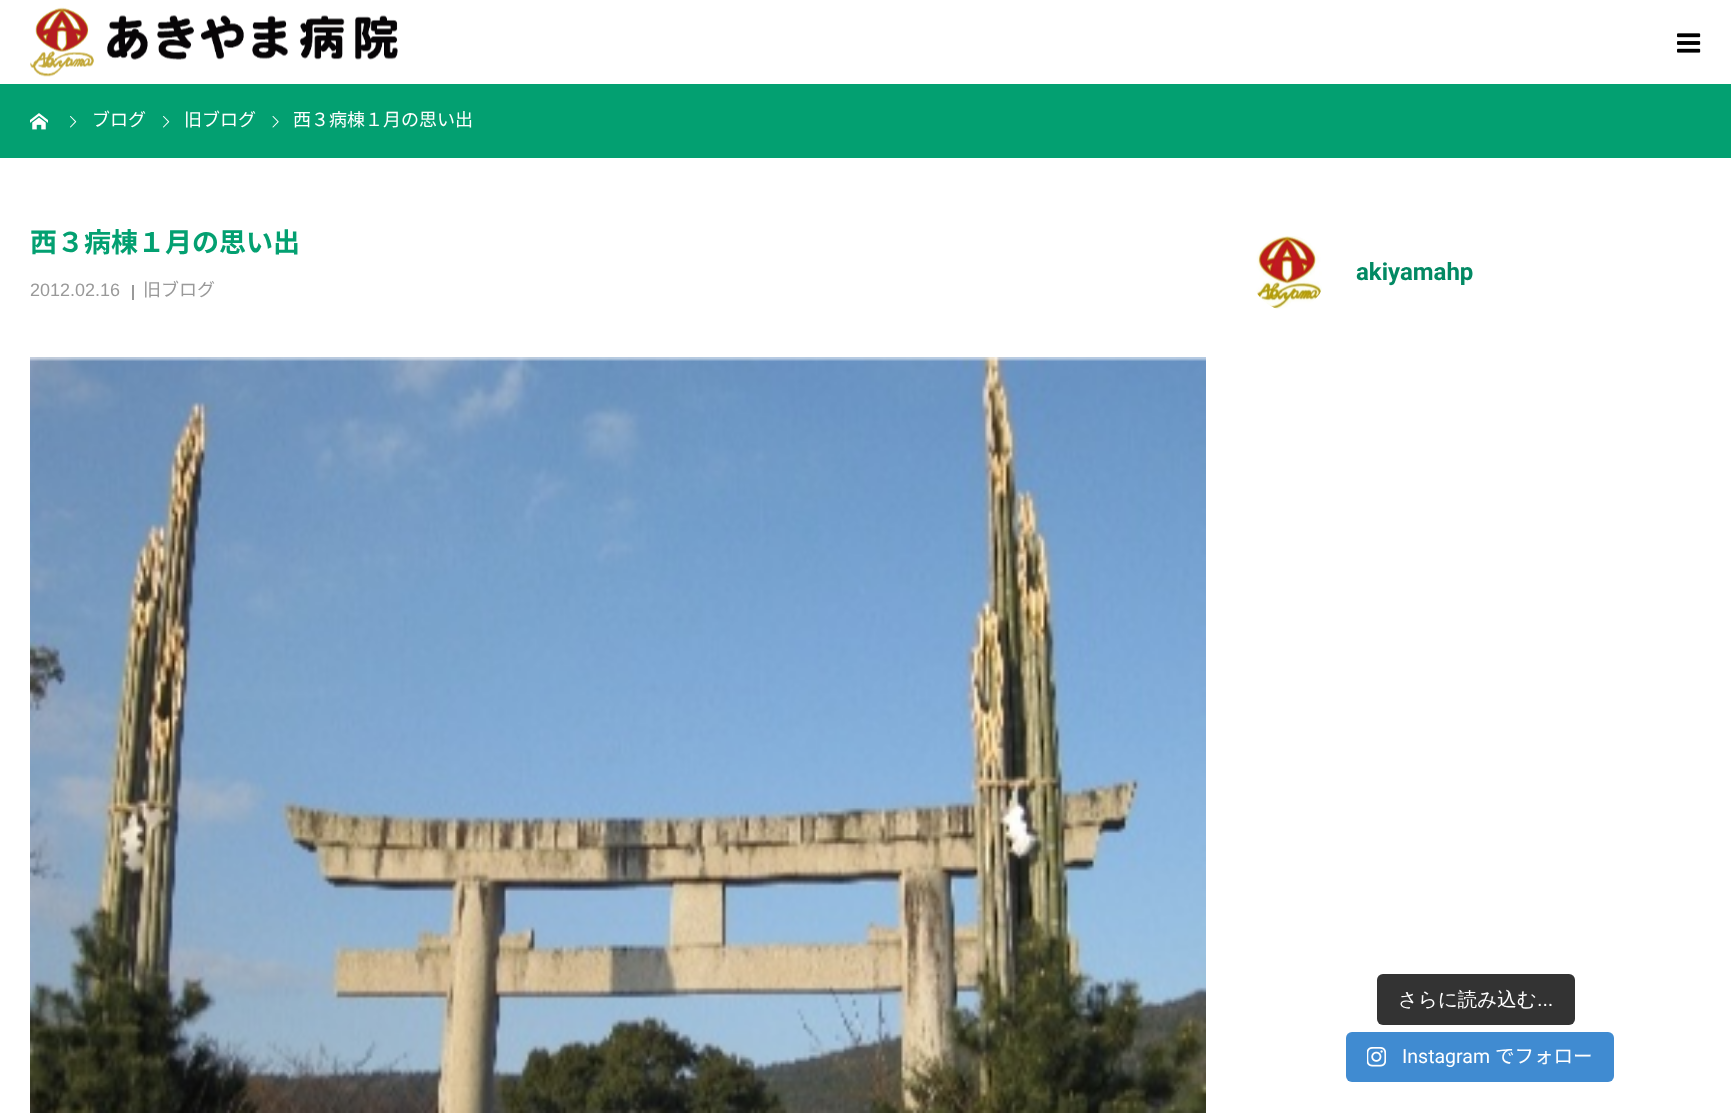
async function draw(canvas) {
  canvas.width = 1731
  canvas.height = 1113
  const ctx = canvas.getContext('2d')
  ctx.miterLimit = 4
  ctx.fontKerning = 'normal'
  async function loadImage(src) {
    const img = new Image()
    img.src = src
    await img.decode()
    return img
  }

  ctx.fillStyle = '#fff'
  ctx.fillRect(0, 0, 1731, 1113)
  ctx.drawImage(await loadImage('image0.png'), 30, 7, 368, 70)
  ctx.drawImage(await loadImage('image1.png'), 1677, 33, 24, 20)
  ctx.fillStyle = '#03a071'
  ctx.fillRect(0, 84, 1731, 74)
  ctx.drawImage(await loadImage('image2.png'), 30, 113, 18, 17)
  ctx.drawImage(await loadImage('image3.png'), 70, 116, 7, 12)
  ctx.font = '18px Noto Sans JP'
  ctx.fillStyle = '#fff'
  ctx.fillText('ブログ', 92, 126)
  ctx.drawImage(await loadImage('image3.png'), 163, 116, 7, 12)
  ctx.fillText('旧ブログ', 184, 126)
  ctx.drawImage(await loadImage('image4.png'), 272, 116, 7, 12)
  ctx.fillText('西３病棟１月の思い出', 293, 126)
  ctx.font = 'bold 27px Noto Sans JP'
  ctx.fillStyle = '#03a071'
  ctx.fillText('西３病棟１月の思い出', 30, 252)
  ctx.font = '18px Liberation Sans'
  ctx.fillStyle = '#999'
  ctx.fillText('2012.02.16', 30, 296)
  ctx.fillRect(132, 285, 2, 15)
  ctx.font = '18px Noto Sans JP'
  ctx.fillText('旧ブログ', 143, 296)
  ctx.drawImage(await loadImage('image5.png'), 30, 357, 1176, 756)
  ctx.drawImage(await loadImage('image6.png'), 1256, 236, 66, 73)
  ctx.font = 'bold 24px Roboto'
  ctx.fillStyle = '#028963'
  ctx.fillText('akiyamahp', 1356, 280)
  ctx.fillStyle = '#333'
  ctx.beginPath()
  ctx.roundRect(1377, 974, 198, 51, 6)
  ctx.fill()
  ctx.font = '500 19.5px WenQuanYi Zen Hei'
  ctx.fillStyle = '#fff'
  ctx.fillText('さらに読み込む', 1398, 1006)
  ctx.font = '19.5px Liberation Sans'
  ctx.fillText('...', 1537, 1006)
  ctx.fillStyle = '#408bd1'
  ctx.beginPath()
  ctx.roundRect(1346, 1032, 268, 50, 6)
  ctx.fill()
  ctx.drawImage(await loadImage('image7.png'), 1367, 1047, 19, 20)
  ctx.font = '19.5px Roboto'
  ctx.fillStyle = '#fff'
  ctx.fillText('Instagram', 1402, 1063)
  ctx.font = '19.5px Noto Sans JP'
  ctx.fillText('でフォロー', 1495, 1063)
}

draw(document.querySelector('canvas'))
